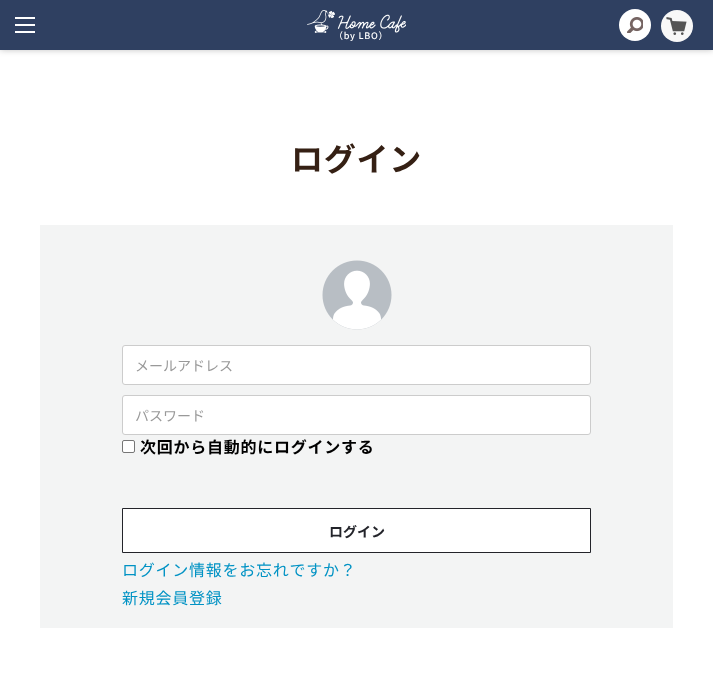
async function draw(canvas) {
  canvas.width = 713
  canvas.height = 679
  const ctx = canvas.getContext('2d')
  ctx.miterLimit = 4
  ctx.fontKerning = 'normal'
  async function loadImage(src) {
    const img = new Image()
    img.src = src
    await img.decode()
    return img
  }

  ctx.fillStyle = '#fff'
  ctx.fillRect(0, 0, 713, 679)
  ctx.fillStyle = '#0000003d'
  ctx.filter = 'blur(3px)'
  ctx.beginPath()
  ctx.rect(0, 0, 713, 50)
  ctx.fill()
  ctx.filter = 'none'
  ctx.fillStyle = '#2f4061'
  ctx.fillRect(0, 0, 713, 50)
  ctx.fillStyle = '#fff'
  ctx.fillRect(15, 17, 20, 2)
  ctx.fillRect(15, 24, 20, 2)
  ctx.fillRect(15, 31, 20, 2)
  ctx.beginPath()
  ctx.arc(635, 25, 16, 0, 2 * Math.PI)
  ctx.fill()
  ctx.drawImage(await loadImage('image0.png'), 627, 17, 16, 16)
  ctx.drawImage(await loadImage('image1.png'), 307, 10, 99, 23)
  ctx.letterSpacing = '0.75px'
  ctx.font = '500 9px Noto Sans JP'
  ctx.fillText('（by LBO）', 334, 39)
  ctx.fillStyle = '#f8f8f8'
  ctx.beginPath()
  ctx.arc(677, 26, 16, 0, 2 * Math.PI)
  ctx.fill()
  ctx.drawImage(await loadImage('image2.png'), 666, 17, 21, 18)
  ctx.font = 'bold 32px Noto Sans JP'
  ctx.fillStyle = '#352014'
  ctx.fillText('ログイン', 291, 171)
  ctx.fillStyle = '#f3f4f4'
  ctx.fillRect(40, 225, 633, 403)
  ctx.drawImage(await loadImage('image3.png'), 322, 260, 70, 70)
  ctx.fillStyle = '#fff'
  ctx.beginPath()
  ctx.roundRect(122.5, 345.5, 468, 39, 2.5)
  ctx.fill()
  ctx.strokeStyle = '#ccc'
  ctx.stroke()
  ctx.letterSpacing = '0px'
  ctx.font = '14px Noto Sans JP'
  ctx.fillStyle = '#999'
  ctx.fillText('メールアドレス', 135, 371)
  ctx.fillStyle = '#fff'
  ctx.beginPath()
  ctx.roundRect(122.5, 395.5, 468, 39, 2.5)
  ctx.fill()
  ctx.stroke()
  ctx.fillStyle = '#999'
  ctx.fillText('パスワード', 135, 421)
  ctx.fillStyle = '#fff'
  ctx.beginPath()
  ctx.roundRect(122.5, 440.5, 12, 12, 1.5)
  ctx.fill()
  ctx.strokeStyle = '#767676'
  ctx.stroke()
  ctx.letterSpacing = '0.75px'
  ctx.font = 'bold 16px Noto Sans JP'
  ctx.fillStyle = '#000'
  ctx.fillText('次回から自動的にログインする', 140, 453)
  ctx.fillStyle = '#fff'
  ctx.beginPath()
  ctx.rect(122.5, 508.5, 468, 44)
  ctx.fill()
  ctx.strokeStyle = '#23242a'
  ctx.stroke()
  ctx.letterSpacing = '0px'
  ctx.font = 'bold 14px Noto Sans JP'
  ctx.fillStyle = '#23242a'
  ctx.fillText('ログイン', 329, 537)
  ctx.letterSpacing = '0.75px'
  ctx.font = '16px Noto Sans JP'
  ctx.fillStyle = '#0092c4'
  ctx.fillText('ログイン情報をお忘れですか？', 122, 576)
  ctx.fillText('新規会員登録', 122, 604)
}

draw(document.querySelector('canvas'))
